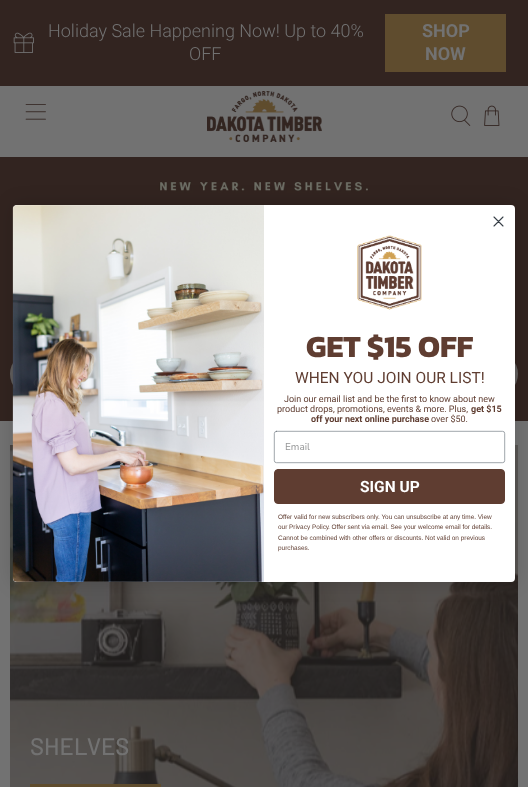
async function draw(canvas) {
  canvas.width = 528
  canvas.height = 787
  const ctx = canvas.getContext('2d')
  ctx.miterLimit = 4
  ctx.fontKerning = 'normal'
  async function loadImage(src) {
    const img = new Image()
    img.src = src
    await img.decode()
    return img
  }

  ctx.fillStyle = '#727272'
  ctx.fillRect(0, 0, 528, 787)
  ctx.fillStyle = '#322420'
  ctx.fillRect(0, 0, 528, 86)
  ctx.drawImage(await loadImage('image0.png'), 13, 32, 21, 21)
  ctx.font = '300 18px Roboto'
  ctx.fillStyle = '#727272'
  ctx.fillText('Holiday Sale Happening Now! Up to 40%', 48, 37)
  ctx.fillText('OFF', 189, 60)
  ctx.fillStyle = '#5f4c2e'
  ctx.fillRect(385, 14, 121, 58)
  ctx.font = 'bold 18px Roboto'
  ctx.fillStyle = '#727272'
  ctx.fillText('SHOP', 422, 37)
  ctx.fillText('NOW', 425, 60)
  ctx.drawImage(await loadImage('image1.png'), 25, 104, 21, 16)
  ctx.drawImage(await loadImage('image2.png'), 207, 91, 115, 51)
  ctx.drawImage(await loadImage('image3.png'), 451, 105, 20, 21)
  ctx.drawImage(await loadImage('image4.png'), 484, 105, 16, 21)
  ctx.drawImage(await loadImage('image7.png'), 0, 157, 528, 264)
  ctx.fillStyle = '#625f5e'
  ctx.beginPath()
  ctx.arc(32, 374, 22, 0, 2 * Math.PI)
  ctx.fill()
  ctx.beginPath()
  ctx.arc(496, 374, 22, 0, 2 * Math.PI)
  ctx.fill()
  ctx.drawImage(await loadImage('image8.png'), 10, 445, 508, 342)
  ctx.fillStyle = '#00000026'
  ctx.filter = 'blur(9.5px)'
  ctx.beginPath()
  ctx.roundRect(13, 205, 502, 377, 4)
  ctx.fill()
  ctx.filter = 'none'
  ctx.fillStyle = '#fff'
  ctx.beginPath()
  ctx.roundRect(13, 205, 502, 377, 4)
  ctx.fill()
  ctx.beginPath()
  ctx.moveTo(494, 217)
  ctx.lineTo(503, 226)
  ctx.moveTo(494, 226)
  ctx.lineTo(503, 217)
  ctx.closePath()
  ctx.strokeStyle = '#373f47'
  ctx.lineWidth = 1.1
  ctx.lineCap = 'round'
  ctx.lineJoin = 'round'
  ctx.stroke()
  ctx.drawImage(await loadImage('image5.png'), 12, 205, 252, 377)
  ctx.drawImage(await loadImage('image6.png'), 357, 235, 65, 75)
  ctx.font = 'bold 31px Kanit'
  ctx.fillStyle = '#5f3d31'
  ctx.fillText('GET $15 OFF', 306, 357)
  ctx.font = '15.5px Roboto'
  ctx.fillText('WHEN YOU JOIN OUR LIST!', 295, 383)
  ctx.font = '9px Roboto'
  ctx.fillText('Join our email list and be the first to know about new', 284, 402)
  ctx.fillText('product drops, promotions, events & more. Plus,', 277, 412)
  ctx.font = 'bold 9px Roboto'
  ctx.fillText('get $15', 471, 412)
  ctx.fillText('off your next online purchase', 311, 422)
  ctx.font = '9px Roboto'
  ctx.fillText('over $50.', 431, 422)
  ctx.beginPath()
  ctx.roundRect(274.3, 431.3, 230.4, 31.4, 2.2)
  ctx.strokeStyle = '#606a72'
  ctx.lineWidth = 0.6
  ctx.lineJoin = 'miter'
  ctx.stroke()
  ctx.font = '10px Nunito Sans'
  ctx.fillStyle = '#949596'
  ctx.fillText('Email', 285, 450)
  ctx.fillStyle = '#5f3d31'
  ctx.beginPath()
  ctx.roundRect(274.5, 469.5, 230, 34, 3.5)
  ctx.fill()
  ctx.strokeStyle = '#5f3d31'
  ctx.lineWidth = 1
  ctx.stroke()
  ctx.font = 'bold 15.5px Roboto'
  ctx.fillStyle = '#fff'
  ctx.fillText('SIGN UP', 360, 492)
  ctx.font = '6.45px Liberation Sans'
  ctx.fillStyle = '#5f3d31'
  ctx.fillText('Offer valid for new subscribers only. You can unsubscribe at any time. View', 278, 519)
  ctx.fillText('our', 278, 529)
  ctx.fillText('Privacy Policy', 289, 529)
  ctx.fillText('. Offer sent via email. See your welcome email for details.', 328, 529)
  ctx.fillText('Cannot be combined with other offers or discounts. Not valid on previous', 278, 540)
  ctx.fillText('purchases.', 278, 550)
  ctx.font = '500 24px Barlow'
  ctx.fillStyle = '#727272'
  ctx.fillText('SHELVES', 30, 755)
  ctx.fillStyle = '#5f4c2d'
  ctx.fillRect(30, 784, 131, 3)
}

draw(document.querySelector('canvas'))
